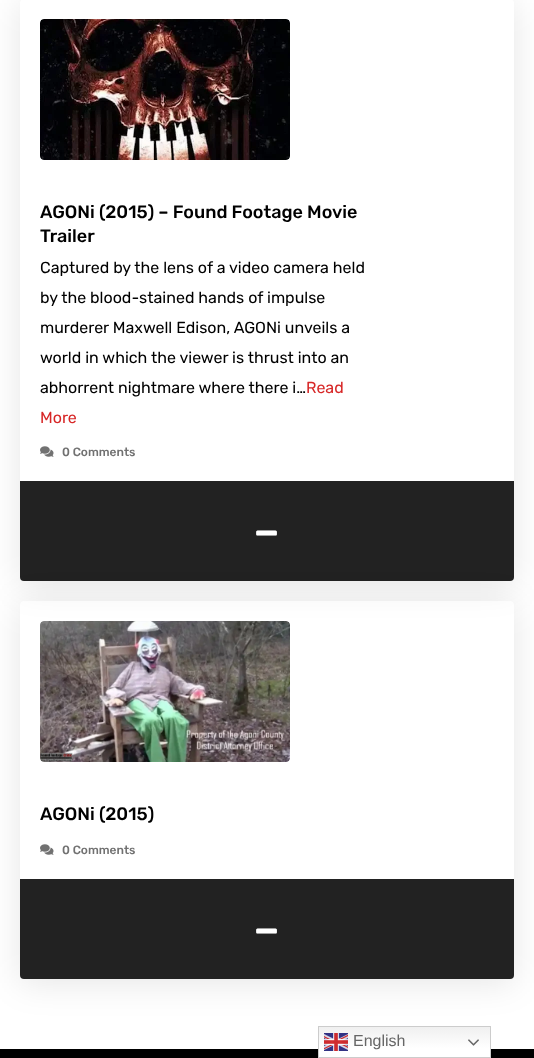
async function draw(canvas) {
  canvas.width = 534
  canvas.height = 1058
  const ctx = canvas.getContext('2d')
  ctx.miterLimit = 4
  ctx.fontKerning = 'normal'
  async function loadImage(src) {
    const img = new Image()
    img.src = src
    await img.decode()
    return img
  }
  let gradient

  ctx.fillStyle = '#fff'
  ctx.fillRect(0, 0, 534, 1058)
  ctx.save()
  ctx.beginPath()
  ctx.moveTo(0, 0)
  ctx.lineTo(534, 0)
  ctx.lineTo(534, 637)
  ctx.lineTo(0, 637)
  ctx.closePath()
  ctx.moveTo(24, -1)
  ctx.lineTo(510, -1)
  ctx.bezierCurveTo(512, -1, 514, 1, 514, 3)
  ctx.lineTo(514, 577)
  ctx.bezierCurveTo(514, 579, 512, 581, 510, 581)
  ctx.lineTo(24, 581)
  ctx.bezierCurveTo(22, 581, 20, 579, 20, 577)
  ctx.lineTo(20, 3)
  ctx.bezierCurveTo(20, 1, 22, -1, 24, -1)
  ctx.closePath()
  ctx.clip('evenodd')
  ctx.fillStyle = '#0000001a'
  ctx.filter = 'blur(17px)'
  ctx.beginPath()
  ctx.roundRect(20, 3, 494, 582, 4)
  ctx.fill()
  ctx.filter = 'none'
  ctx.restore()
  ctx.drawImage(await loadImage('image0.png'), 40, 19, 250, 141)
  ctx.font = '500 18px Rubik'
  ctx.fillStyle = '#000'
  ctx.fillText('AGONi (2015) – Found Footage Movie', 40, 218)
  ctx.fillText('Trailer', 40, 242)
  ctx.font = '16px Rubik'
  ctx.fillText('Captured by the lens of a video camera held', 40, 273)
  ctx.fillText('by the blood-stained hands of impulse', 40, 303)
  ctx.fillText('murderer Maxwell Edison, AGONi unveils a', 40, 333)
  ctx.fillText('world in which the viewer is thrust into an', 40, 363)
  ctx.fillText('abhorrent nightmare where there i…', 40, 393)
  ctx.fillStyle = '#d72727'
  ctx.fillText('Read', 306, 393)
  ctx.fillText('More', 40, 423)
  ctx.drawImage(await loadImage('image1.png'), 40, 446, 14, 11)
  ctx.font = '500 12px Rubik'
  ctx.fillStyle = '#717171'
  ctx.fillText('0 Comments', 62, 456)
  ctx.fillStyle = '#222'
  ctx.beginPath()
  ctx.roundRect(20, 481, 494, 100, [0, 0, 4, 4])
  ctx.fill()
  ctx.font = '60px Rubik'
  ctx.fillStyle = '#fff'
  ctx.fillText('-', 252, 551)
  ctx.save()
  ctx.beginPath()
  ctx.moveTo(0, 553)
  ctx.lineTo(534, 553)
  ctx.lineTo(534, 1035)
  ctx.lineTo(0, 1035)
  ctx.closePath()
  ctx.moveTo(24, 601)
  ctx.lineTo(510, 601)
  ctx.bezierCurveTo(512, 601, 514, 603, 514, 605)
  ctx.lineTo(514, 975)
  ctx.bezierCurveTo(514, 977, 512, 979, 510, 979)
  ctx.lineTo(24, 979)
  ctx.bezierCurveTo(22, 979, 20, 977, 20, 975)
  ctx.lineTo(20, 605)
  ctx.bezierCurveTo(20, 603, 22, 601, 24, 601)
  ctx.closePath()
  ctx.clip('evenodd')
  ctx.fillStyle = '#0000001a'
  ctx.filter = 'blur(17px)'
  ctx.beginPath()
  ctx.roundRect(20, 605, 494, 378, 4)
  ctx.fill()
  ctx.filter = 'none'
  ctx.restore()
  ctx.drawImage(await loadImage('image2.png'), 40, 621, 250, 141)
  ctx.font = '500 18px Rubik'
  ctx.fillStyle = '#000'
  ctx.fillText('AGONi (2015)', 40, 820)
  ctx.drawImage(await loadImage('image1.png'), 40, 844, 14, 11)
  ctx.font = '500 12px Rubik'
  ctx.fillStyle = '#717171'
  ctx.fillText('0 Comments', 62, 854)
  ctx.fillStyle = '#222'
  ctx.beginPath()
  ctx.roundRect(20, 879, 494, 100, [0, 0, 4, 4])
  ctx.fill()
  ctx.font = '60px Rubik'
  ctx.fillStyle = '#fff'
  ctx.fillText('-', 252, 949)
  ctx.fillStyle = '#000'
  ctx.fillRect(0, 1049, 534, 9)
  gradient = ctx.createLinearGradient(405, 1026, 405, 1058)
  gradient.addColorStop(0, '#efefef')
  gradient.addColorStop(0.7, '#fff')
  ctx.fillStyle = gradient
  ctx.fillRect(319, 1027, 171, 30)
  ctx.strokeStyle = '#ccc'
  ctx.strokeRect(318.5, 1026.5, 172, 31)
  ctx.drawImage(await loadImage('image3.png'), 324, 1033, 24, 18)
  ctx.font = '16px Liberation Sans'
  ctx.fillStyle = '#666'
  ctx.fillText('English', 353, 1046)
  ctx.drawImage(await loadImage('image4.png'), 468, 1039, 11, 7)
}

draw(document.querySelector('canvas'))
